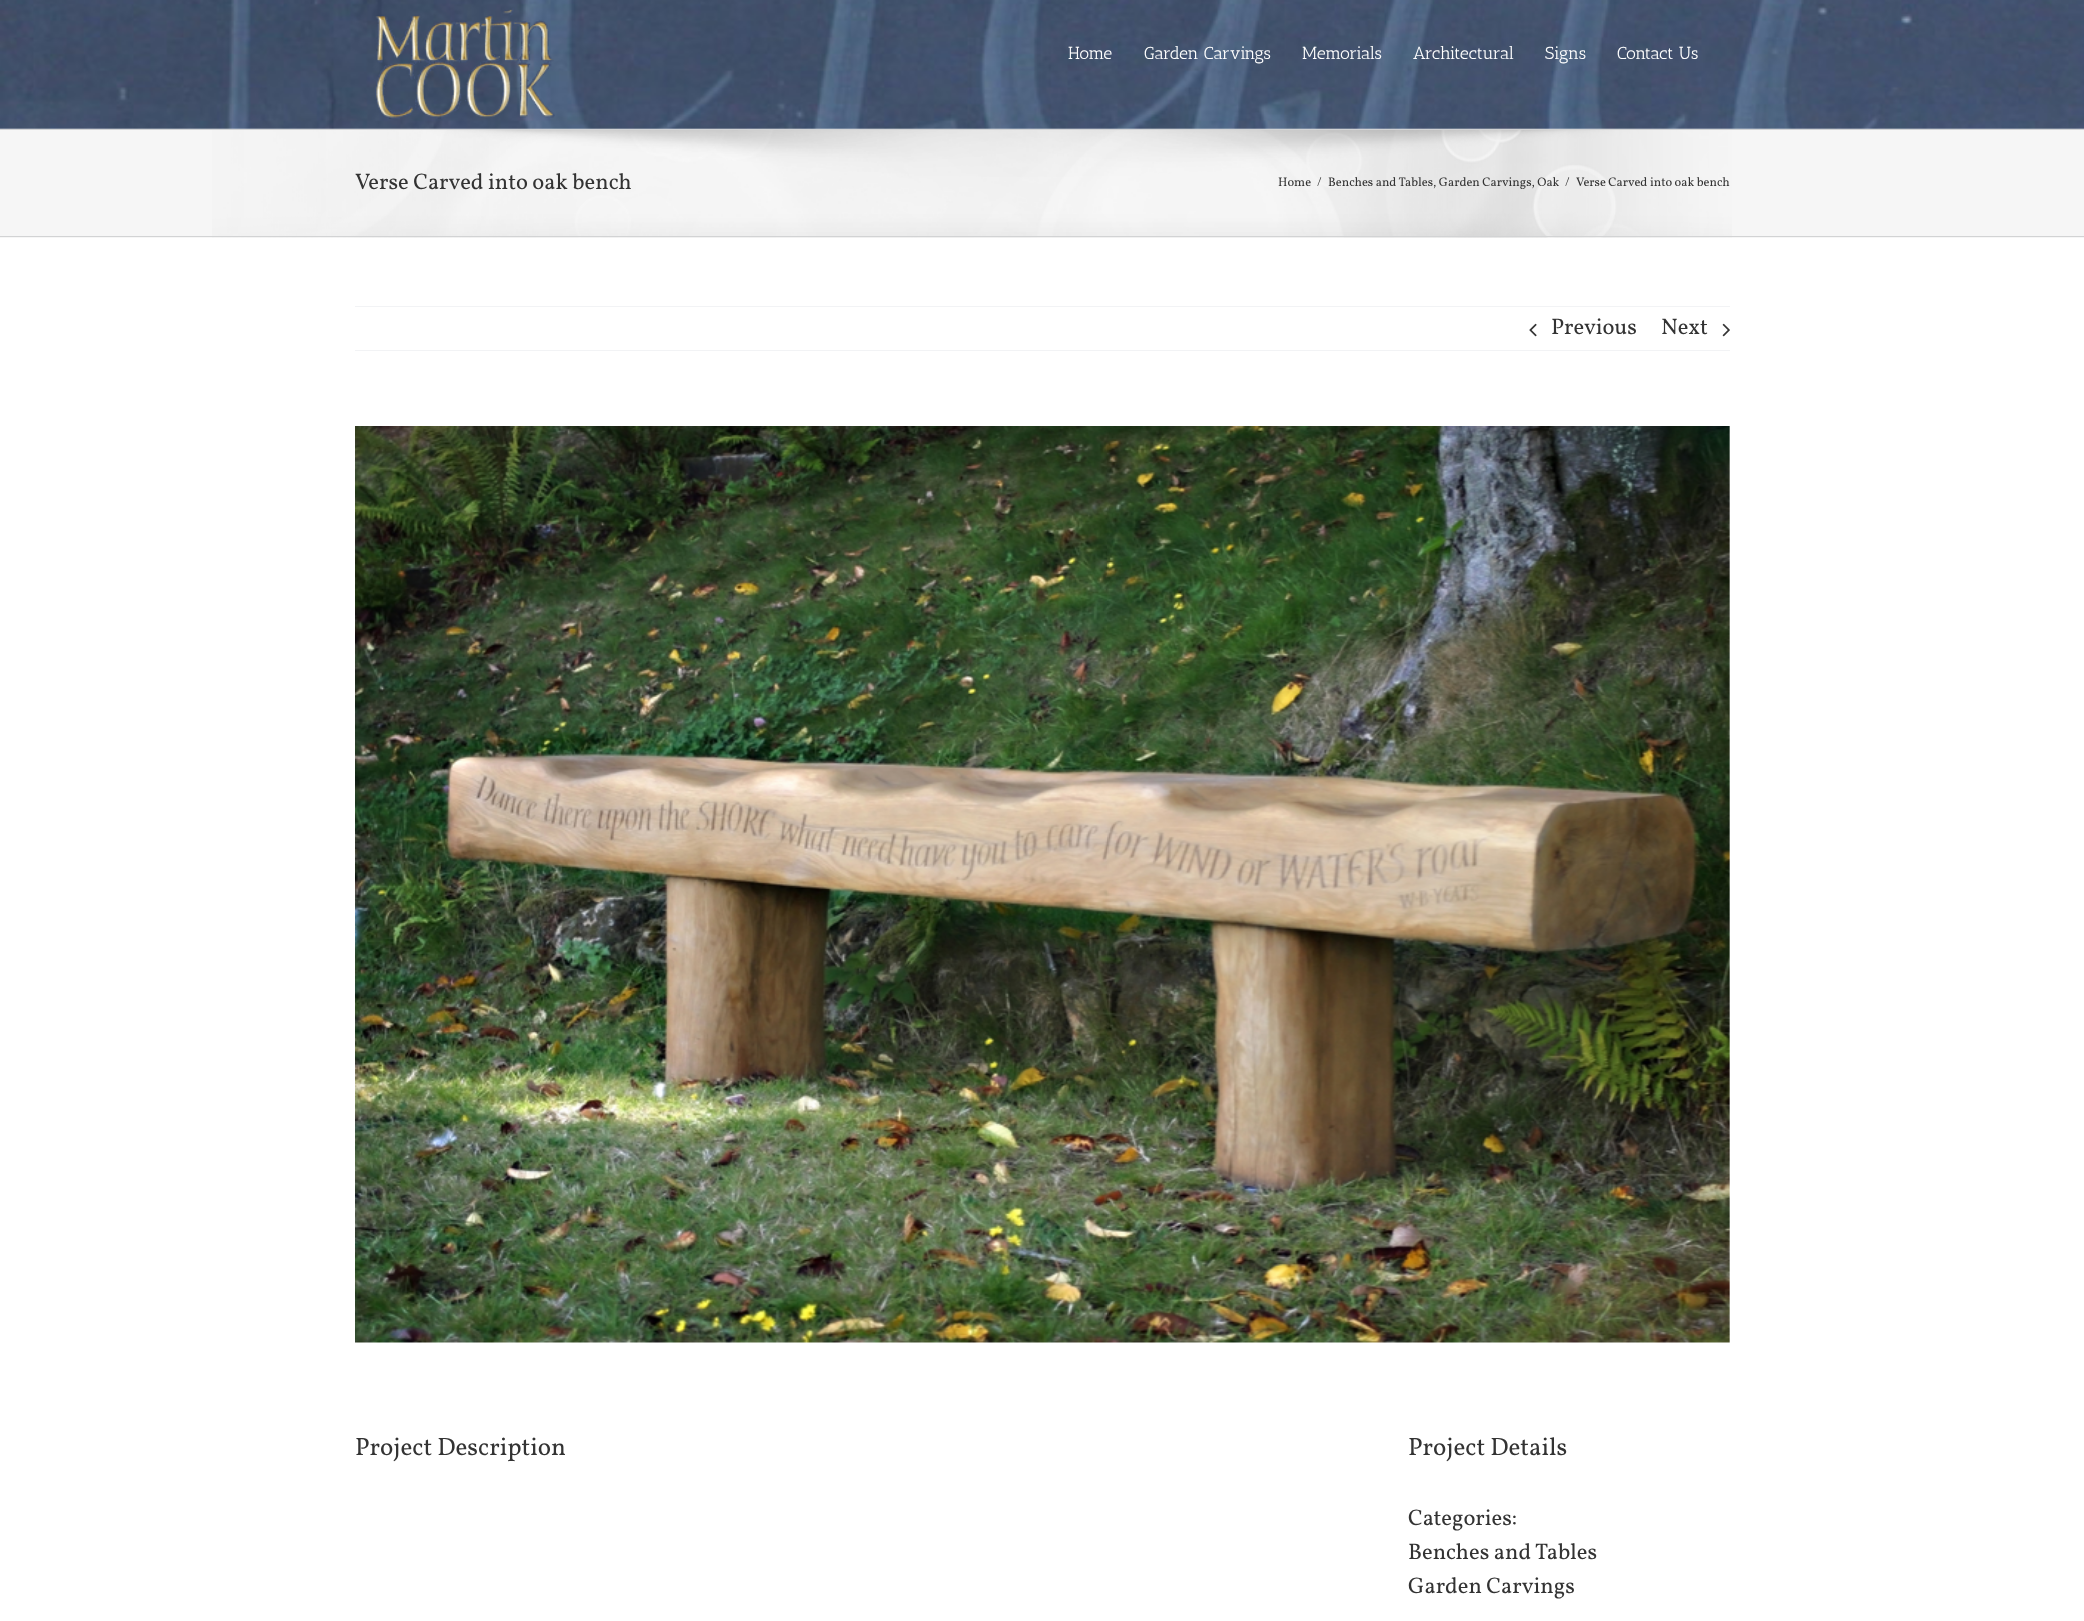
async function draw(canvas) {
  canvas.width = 2084
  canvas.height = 1621
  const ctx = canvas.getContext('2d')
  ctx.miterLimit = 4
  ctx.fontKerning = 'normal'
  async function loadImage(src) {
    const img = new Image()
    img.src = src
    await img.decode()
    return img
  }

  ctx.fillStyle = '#fff'
  ctx.fillRect(0, 0, 2084, 1621)
  ctx.fillStyle = '#f6f6f6'
  ctx.fillRect(0, 130, 2084, 108)
  ctx.drawImage(await loadImage('image2.png'), 212, 128, 1520, 110)
  ctx.drawImage(await loadImage('image0.png'), 0, 0, 2084, 129)
  ctx.drawImage(await loadImage('image1.png'), 375, 8, 180, 111)
  ctx.font = '17.5px Antic Slab'
  ctx.fillStyle = '#fff'
  ctx.fillText('Home', 1068, 59)
  ctx.fillText('Garden Carvings', 1144, 59)
  ctx.fillText('Memorials', 1302, 59)
  ctx.fillText('Architectural', 1413, 59)
  ctx.fillText('Signs', 1545, 59)
  ctx.fillText('Contact Us', 1617, 59)
  ctx.fillStyle = '#d2d3d4'
  ctx.fillRect(0, 129, 2084, 1)
  ctx.fillRect(0, 236, 2084, 1)
  ctx.font = '22.5px Vollkorn'
  ctx.fillStyle = '#333'
  ctx.fillText('Verse Carved into oak bench', 355, 189)
  ctx.font = '12.5px Vollkorn'
  ctx.fillText('Home', 1278, 186)
  ctx.fillText('/', 1317, 186)
  ctx.fillText('Benches and Tables, Garden Carvings, Oak', 1328, 186)
  ctx.fillText('/', 1565, 186)
  ctx.fillText('Verse Carved into oak bench', 1576, 186)
  ctx.fillStyle = '#f2f3f5'
  ctx.fillRect(355, 306, 1375, 1)
  ctx.fillRect(355, 350, 1375, 1)
  ctx.drawImage(await loadImage('image3.png'), 1529, 323, 8, 14)
  ctx.font = '22.5px Vollkorn'
  ctx.fillStyle = '#333'
  ctx.fillText('Previous', 1551, 334)
  ctx.fillText('Next', 1661, 334)
  ctx.drawImage(await loadImage('image4.png'), 1722, 323, 8, 14)
  ctx.drawImage(await loadImage('image5.png'), 355, 426, 1375, 917)
  ctx.font = '25px Vollkorn'
  ctx.fillText('Project Description', 355, 1455)
  ctx.fillText('Project Details', 1408, 1455)
  ctx.font = '22.5px Vollkorn'
  ctx.fillText('Categories:', 1408, 1525)
  ctx.fillText('Benches and Tables', 1408, 1559)
  ctx.fillText('Garden Carvings', 1408, 1593)
}

draw(document.querySelector('canvas'))
